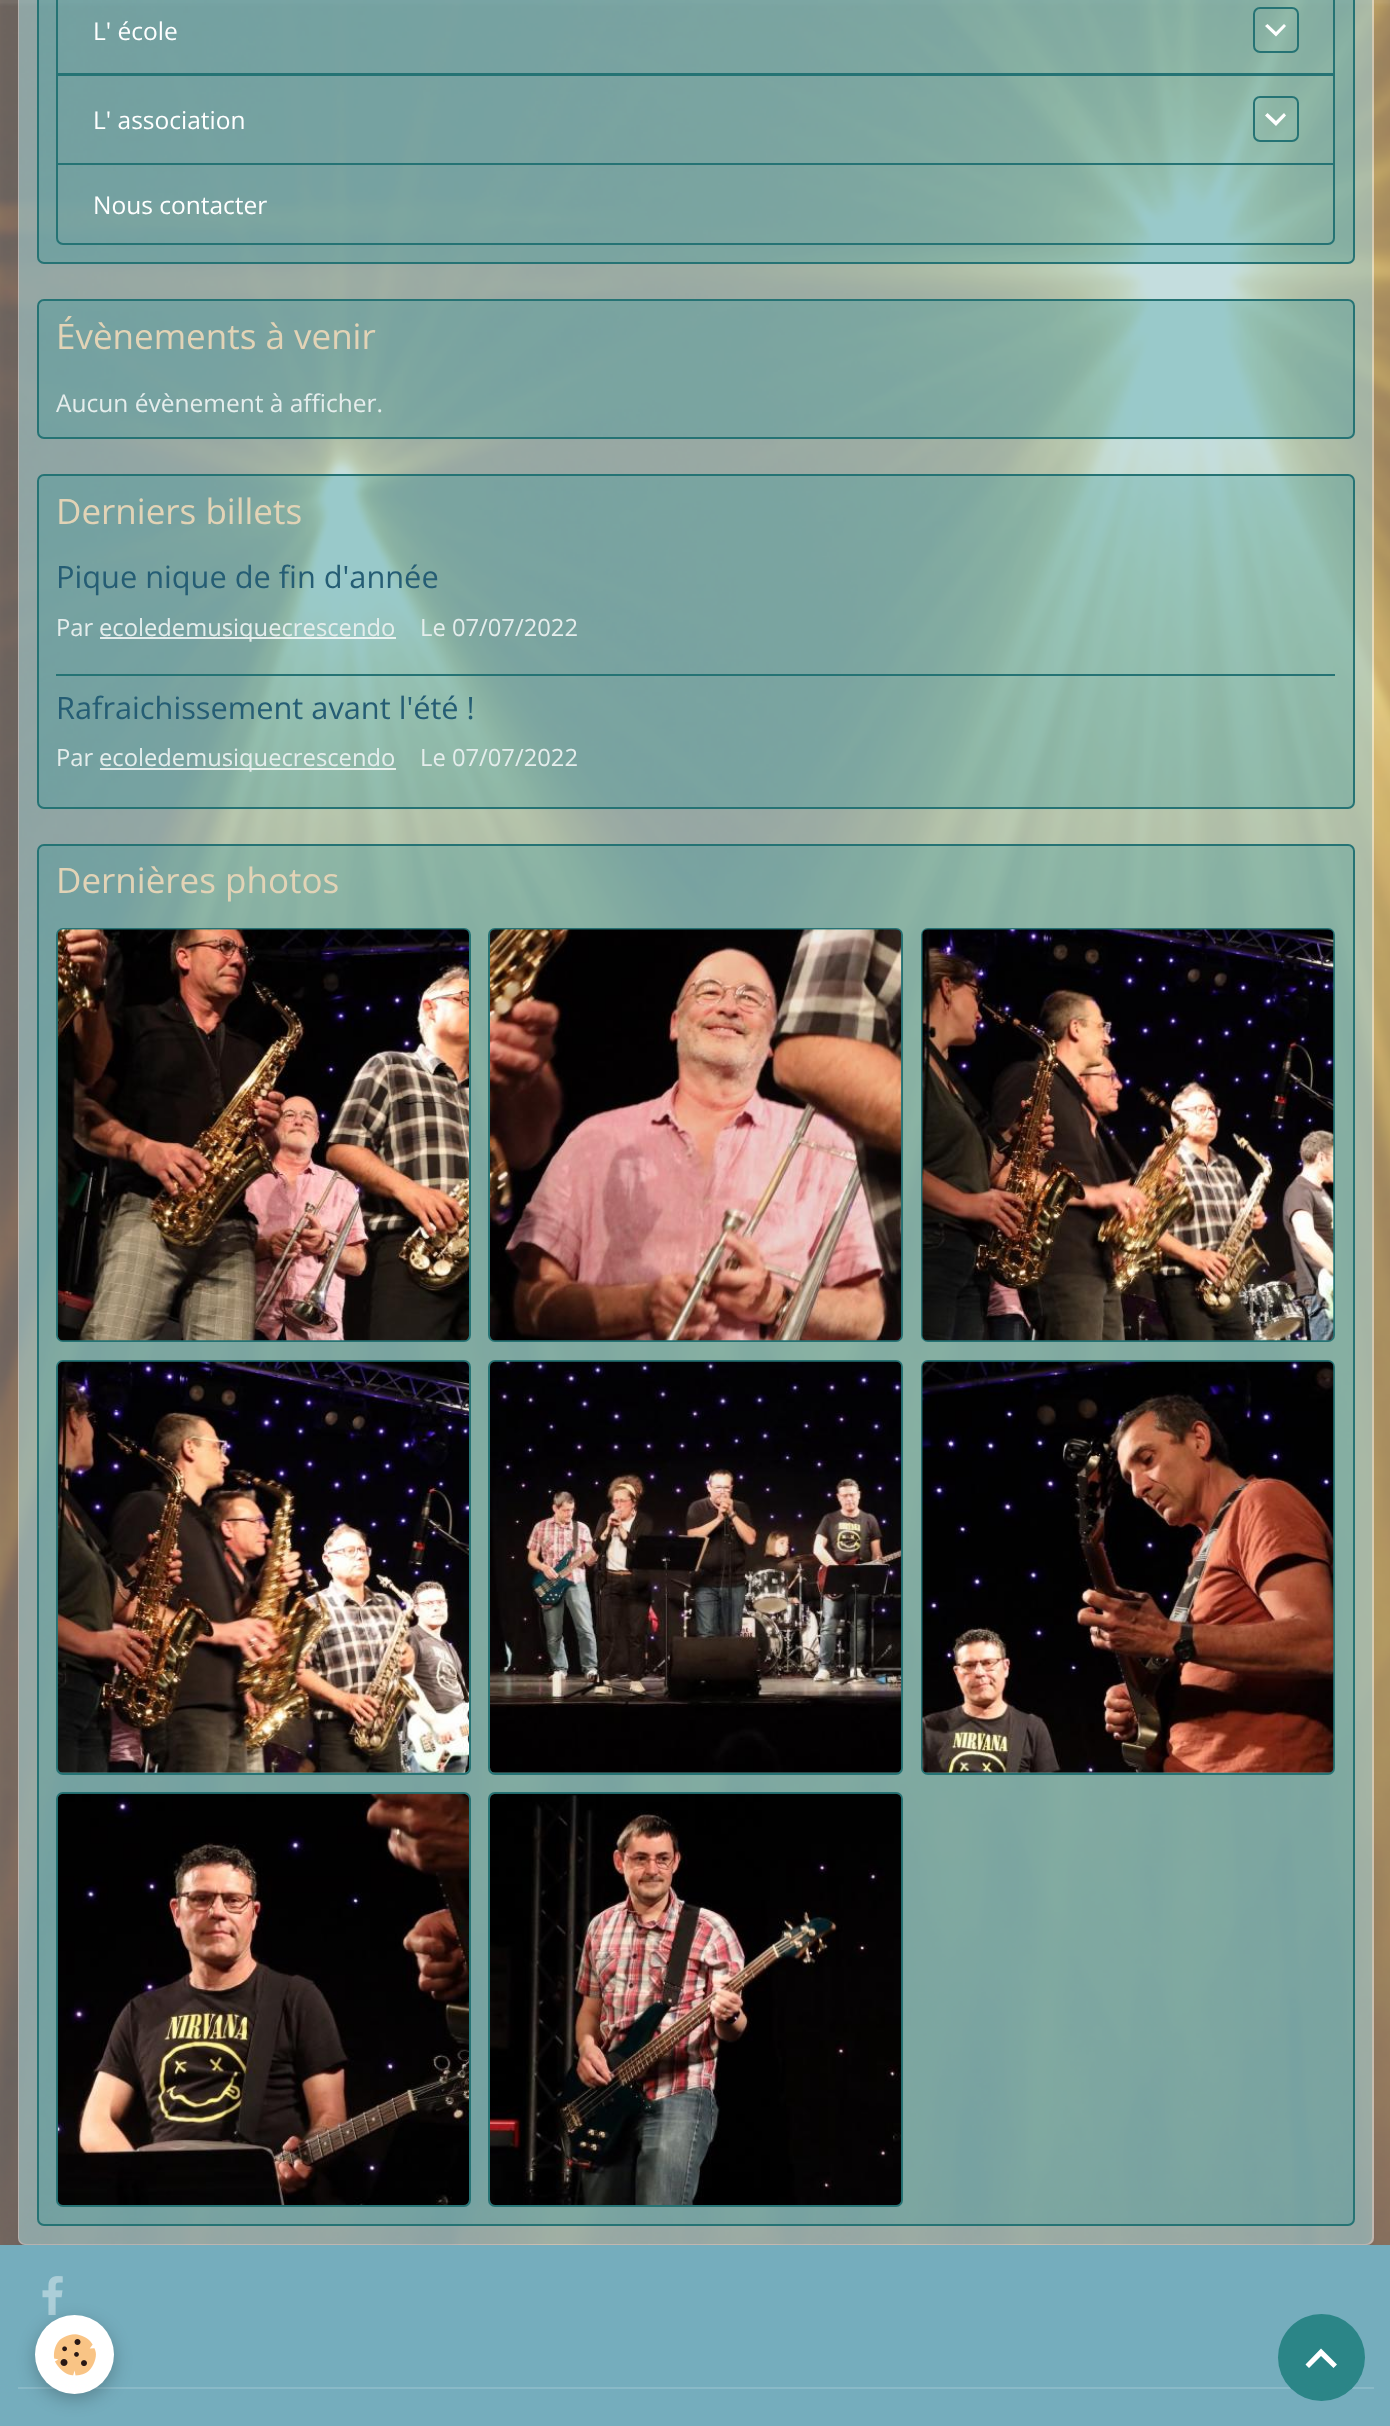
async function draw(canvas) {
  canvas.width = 1390
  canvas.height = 2426
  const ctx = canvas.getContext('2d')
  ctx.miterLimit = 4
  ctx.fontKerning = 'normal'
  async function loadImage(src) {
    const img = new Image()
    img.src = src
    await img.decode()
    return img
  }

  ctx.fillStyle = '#fff'
  ctx.fillRect(0, 0, 1390, 2426)
  ctx.drawImage(await loadImage('image0.png'), 0, 0, 1390, 2245)
  ctx.fillStyle = '#ffffff80'
  ctx.beginPath()
  ctx.roundRect(18, -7, 1356, 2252, 7)
  ctx.fill()
  ctx.fillStyle = '#2b858747'
  ctx.beginPath()
  ctx.roundRect(19, -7, 1353, 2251, 7)
  ctx.fill()
  ctx.fillStyle = '#31999b4a'
  ctx.beginPath()
  ctx.roundRect(38, -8, 1316, 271, 6)
  ctx.fill()
  ctx.strokeStyle = '#257374'
  ctx.lineWidth = 2
  ctx.stroke()
  ctx.strokeRect(57, -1, 1277, 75)
  ctx.font = '24.5px Open Sans'
  ctx.fillStyle = '#fff'
  ctx.fillText('L\' école', 93, 40)
  ctx.beginPath()
  ctx.roundRect(1254, 8, 44, 44, 6)
  ctx.stroke()
  ctx.beginPath()
  ctx.moveTo(1284, 24)
  ctx.lineTo(1286, 26)
  ctx.lineTo(1276, 36.5)
  ctx.lineTo(1265, 26)
  ctx.lineTo(1267.5, 24)
  ctx.lineTo(1276, 32)
  ctx.closePath()
  ctx.fill()
  ctx.strokeRect(57, 75, 1277, 89)
  ctx.fillText('L\' association', 93, 129)
  ctx.beginPath()
  ctx.roundRect(1254, 97, 44, 44, 6)
  ctx.stroke()
  ctx.beginPath()
  ctx.moveTo(1284, 113)
  ctx.lineTo(1286, 115.5)
  ctx.lineTo(1276, 126)
  ctx.lineTo(1265, 115.5)
  ctx.lineTo(1267.5, 113)
  ctx.lineTo(1276, 121)
  ctx.closePath()
  ctx.fill()
  ctx.beginPath()
  ctx.roundRect(57, 164, 1277, 80, [0, 0, 6, 6])
  ctx.stroke()
  ctx.fillText('Nous contacter', 93, 214)
  ctx.fillStyle = '#31999b4a'
  ctx.beginPath()
  ctx.roundRect(38, 300, 1316, 138, 6)
  ctx.fill()
  ctx.stroke()
  ctx.font = '35px Open Sans'
  ctx.fillStyle = '#e2d3b6'
  ctx.fillText('Évènements à venir', 56, 349)
  ctx.font = '24.5px Open Sans'
  ctx.fillStyle = '#e5edec'
  ctx.fillText('Aucun évènement à afficher.', 56, 412)
  ctx.fillStyle = '#31999b4a'
  ctx.beginPath()
  ctx.roundRect(38, 475, 1316, 333, 6)
  ctx.fill()
  ctx.stroke()
  ctx.font = '35px Open Sans'
  ctx.fillStyle = '#e2d3b6'
  ctx.fillText('Derniers billets', 56, 524)
  ctx.font = '30.75px Open Sans'
  ctx.fillStyle = '#255d74'
  ctx.fillText('Pique nique de fin d\'année', 56, 588)
  ctx.font = '23.75px Open Sans'
  ctx.fillStyle = '#e5edec'
  ctx.fillText('Par', 56, 636)
  ctx.fillStyle = '#ffffffcc'
  ctx.fillRect(100, 637, 296, 2)
  ctx.fillStyle = '#e5edec'
  ctx.fillText('ecoledemusiquecrescendo', 99, 636)
  ctx.fillText('Le 07/07/2022', 420, 636)
  ctx.fillStyle = '#257374'
  ctx.fillRect(56, 674, 1279, 2)
  ctx.font = '30.75px Open Sans'
  ctx.fillStyle = '#255d74'
  ctx.fillText('Rafraichissement avant l\'été !', 56, 719)
  ctx.font = '23.75px Open Sans'
  ctx.fillStyle = '#e5edec'
  ctx.fillText('Par', 56, 766)
  ctx.fillStyle = '#ffffffcc'
  ctx.fillRect(100, 768, 296, 2)
  ctx.fillStyle = '#e5edec'
  ctx.fillText('ecoledemusiquecrescendo', 99, 766)
  ctx.fillText('Le 07/07/2022', 420, 766)
  ctx.fillStyle = '#31999b4a'
  ctx.beginPath()
  ctx.roundRect(38, 845, 1316, 1380, 6)
  ctx.fill()
  ctx.stroke()
  ctx.font = '35px Open Sans'
  ctx.fillStyle = '#e2d3b6'
  ctx.fillText('Dernières photos', 56, 893)
  ctx.beginPath()
  ctx.roundRect(57, 929, 413, 412, 6)
  ctx.stroke()
  ctx.drawImage(await loadImage('image1.png'), 57, 929, 412, 412)
  ctx.beginPath()
  ctx.roundRect(489, 929, 413, 412, 6)
  ctx.stroke()
  ctx.drawImage(await loadImage('image2.png'), 490, 929, 412, 412)
  ctx.beginPath()
  ctx.roundRect(922, 929, 412, 412, 6)
  ctx.stroke()
  ctx.drawImage(await loadImage('image3.png'), 922, 929, 412, 412)
  ctx.fillStyle = '#2b858747'
  ctx.beginPath()
  ctx.roundRect(57, 1361, 413, 413, 6)
  ctx.fill()
  ctx.stroke()
  ctx.drawImage(await loadImage('image4.png'), 57, 1361, 412, 412)
  ctx.beginPath()
  ctx.roundRect(489, 1361, 413, 413, 6)
  ctx.fill()
  ctx.stroke()
  ctx.drawImage(await loadImage('image5.png'), 490, 1361, 412, 412)
  ctx.beginPath()
  ctx.roundRect(922, 1361, 412, 413, 6)
  ctx.fill()
  ctx.stroke()
  ctx.drawImage(await loadImage('image6.png'), 922, 1361, 412, 412)
  ctx.beginPath()
  ctx.roundRect(57, 1793, 413, 413, 6)
  ctx.stroke()
  ctx.drawImage(await loadImage('image7.png'), 57, 1793, 412, 412)
  ctx.beginPath()
  ctx.roundRect(489, 1793, 413, 413, 6)
  ctx.stroke()
  ctx.drawImage(await loadImage('image8.png'), 490, 1793, 412, 412)
  ctx.fillStyle = '#75adbd'
  ctx.fillRect(0, 2245, 1390, 181)
  ctx.drawImage(await loadImage('image9.png'), 42, 2276, 21, 39)
  ctx.fillStyle = '#8ab9c7'
  ctx.fillRect(18, 2387, 1356, 2)
  ctx.fillStyle = '#0000003d'
  ctx.filter = 'blur(9px)'
  ctx.beginPath()
  ctx.roundRect(35, 2321, 79, 78, 39)
  ctx.fill()
  ctx.filter = 'none'
  ctx.fillStyle = '#fff'
  ctx.beginPath()
  ctx.arc(74.5, 2354.5, 39.5, 0, 2 * Math.PI)
  ctx.fill()
  ctx.drawImage(await loadImage('image10.png'), 53, 2334, 43, 42)
  ctx.fillStyle = '#2b8587'
  ctx.beginPath()
  ctx.arc(1321.5, 2357.5, 43.5, 0, 2 * Math.PI)
  ctx.fill()
  ctx.fillStyle = '#fff'
  ctx.beginPath()
  ctx.moveTo(1321, 2348.5)
  ctx.lineTo(1337, 2364.5)
  ctx.lineTo(1333.5, 2368)
  ctx.lineTo(1321, 2356)
  ctx.lineTo(1309, 2368)
  ctx.lineTo(1305.5, 2364.5)
  ctx.closePath()
  ctx.fill()
}

draw(document.querySelector('canvas'))
